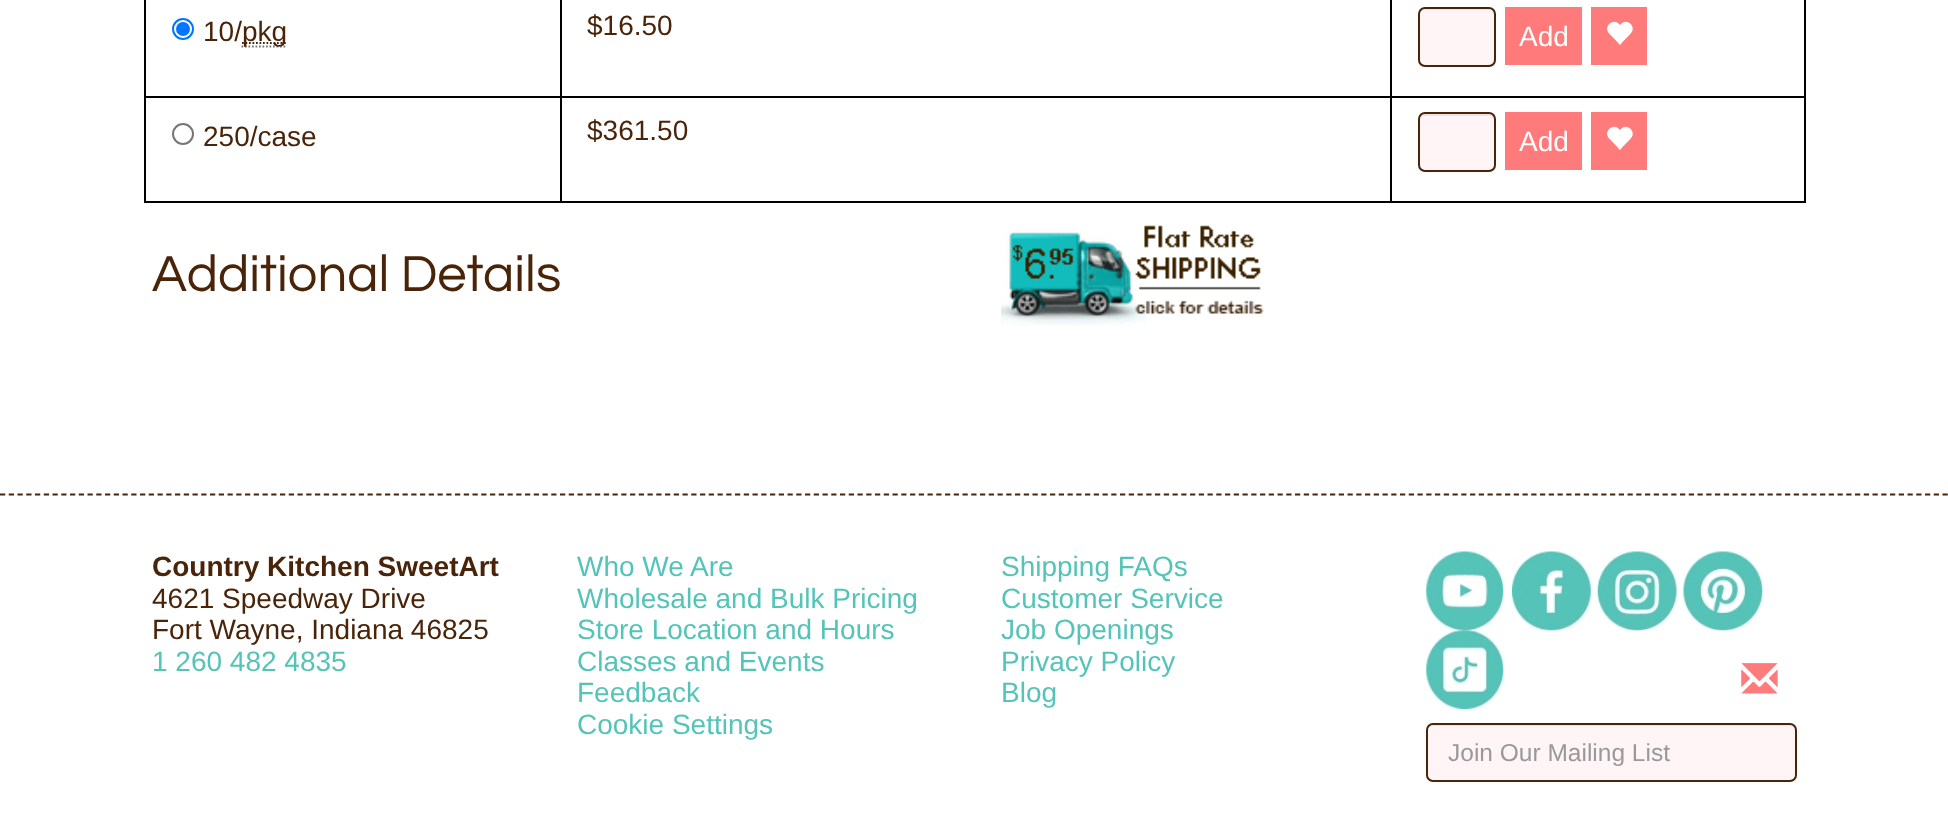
async function draw(canvas) {
  canvas.width = 1948
  canvas.height = 837
  const ctx = canvas.getContext('2d')
  ctx.miterLimit = 4
  ctx.fontKerning = 'normal'
  async function loadImage(src) {
    const img = new Image()
    img.src = src
    await img.decode()
    return img
  }

  ctx.fillStyle = '#fff'
  ctx.fillRect(0, 0, 1948, 837)
  ctx.fillStyle = '#000'
  ctx.fillRect(144, 96, 1246, 2)
  ctx.fillRect(144, 0, 2, 98)
  ctx.beginPath()
  ctx.arc(183, 29, 10, 0, 2 * Math.PI)
  ctx.strokeStyle = '#0075ff'
  ctx.lineWidth = 2
  ctx.stroke()
  ctx.fillStyle = '#0075ff'
  ctx.beginPath()
  ctx.arc(183, 29, 7, 0, 2 * Math.PI)
  ctx.fill()
  ctx.font = '28px Liberation Sans'
  ctx.fillStyle = '#492408'
  ctx.fillText('10/', 203, 41)
  ctx.beginPath()
  ctx.moveTo(241.5, 46.5)
  ctx.lineTo(287, 46.5)
  ctx.strokeStyle = '#777'
  ctx.lineWidth = 1.8
  ctx.setLineDash([1.75, 1.75])
  ctx.stroke()
  ctx.beginPath()
  ctx.moveTo(242, 43)
  ctx.lineTo(287, 43)
  ctx.strokeStyle = '#492408'
  ctx.stroke()
  ctx.fillText('pkg', 242, 41)
  ctx.fillStyle = '#000'
  ctx.fillRect(560, 0, 2, 98)
  ctx.fillStyle = '#492408'
  ctx.fillText('$16.50', 587, 35)
  ctx.fillStyle = '#000'
  ctx.fillRect(1804, 0, 2, 203)
  ctx.fillRect(1390, 96, 416, 2)
  ctx.fillRect(1390, 0, 2, 98)
  ctx.fillStyle = '#fff5f7'
  ctx.beginPath()
  ctx.roundRect(1418, 7, 78, 60, 7)
  ctx.fill()
  ctx.fillStyle = '#ece3e4'
  ctx.beginPath()
  ctx.moveTo(1424, 10)
  ctx.lineTo(1489, 10)
  ctx.bezierCurveTo(1492, 10, 1494, 13, 1494, 16)
  ctx.lineTo(1494, 61)
  ctx.lineTo(1493, 64)
  ctx.bezierCurveTo(1496, 61, 1495, 55, 1495, 52)
  ctx.lineTo(1495, 37)
  ctx.bezierCurveTo(1495, 4, 1501, 9, 1468, 9)
  ctx.lineTo(1435, 9)
  ctx.bezierCurveTo(1427, 9, 1419, 6, 1419, 16)
  ctx.bezierCurveTo(1419, 13, 1422, 10, 1424, 10)
  ctx.closePath()
  ctx.fill()
  ctx.beginPath()
  ctx.roundRect(1419, 8, 76, 58, 6)
  ctx.lineWidth = 2
  ctx.setLineDash([])
  ctx.stroke()
  ctx.fillStyle = '#ff7a7a'
  ctx.fillRect(1505, 7, 77, 58)
  ctx.fillStyle = '#fff'
  ctx.fillText('Add', 1519, 46)
  ctx.fillStyle = '#ff7a7a'
  ctx.fillRect(1591, 7, 56, 58)
  ctx.drawImage(await loadImage('image0.png'), 1607, 21, 26, 24)
  ctx.fillStyle = '#000'
  ctx.fillRect(144, 201, 1662, 2)
  ctx.fillRect(144, 98, 2, 105)
  ctx.beginPath()
  ctx.arc(183, 134, 10, 0, 2 * Math.PI)
  ctx.strokeStyle = '#767676'
  ctx.stroke()
  ctx.fillStyle = '#492408'
  ctx.fillText('250/case', 203, 146)
  ctx.fillStyle = '#000'
  ctx.fillRect(560, 98, 2, 105)
  ctx.fillStyle = '#492408'
  ctx.fillText('$361.50', 587, 140)
  ctx.fillStyle = '#000'
  ctx.fillRect(1390, 98, 2, 105)
  ctx.fillStyle = '#fff5f7'
  ctx.beginPath()
  ctx.roundRect(1418, 112, 78, 60, 7)
  ctx.fill()
  ctx.fillStyle = '#ece3e4'
  ctx.beginPath()
  ctx.moveTo(1424, 116)
  ctx.lineTo(1489, 116)
  ctx.bezierCurveTo(1492, 116, 1494, 118, 1494, 121)
  ctx.lineTo(1494, 166)
  ctx.lineTo(1494, 169)
  ctx.bezierCurveTo(1496, 166, 1495, 160, 1495, 157)
  ctx.lineTo(1495, 142)
  ctx.bezierCurveTo(1495, 109, 1501, 114, 1468, 114)
  ctx.lineTo(1435, 114)
  ctx.bezierCurveTo(1427, 114, 1419, 111, 1419, 121)
  ctx.bezierCurveTo(1419, 118, 1422, 116, 1424, 116)
  ctx.closePath()
  ctx.fill()
  ctx.beginPath()
  ctx.roundRect(1419, 113, 76, 58, 6)
  ctx.strokeStyle = '#492408'
  ctx.stroke()
  ctx.fillStyle = '#ff7a7a'
  ctx.fillRect(1505, 112, 77, 58)
  ctx.fillStyle = '#fff'
  ctx.fillText('Add', 1519, 151)
  ctx.fillStyle = '#ff7a7a'
  ctx.fillRect(1591, 112, 56, 58)
  ctx.drawImage(await loadImage('image0.png'), 1607, 126, 26, 24)
  ctx.font = '52.5px Questrial'
  ctx.fillStyle = '#492408'
  ctx.fillText('Additional Details', 152, 291)
  ctx.drawImage(await loadImage('image1.png'), 1001, 225, 263, 101)
  ctx.beginPath()
  ctx.moveTo(0, 494.5)
  ctx.lineTo(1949.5, 494.5)
  ctx.lineWidth = 1.8
  ctx.setLineDash([5.25, 3.5])
  ctx.stroke()
  ctx.font = 'bold 28px Liberation Sans'
  ctx.fillText('Country Kitchen SweetArt', 152, 576)
  ctx.font = '28px Liberation Sans'
  ctx.fillText('4621 Speedway Drive', 152, 608)
  ctx.fillText('Fort Wayne, Indiana 46825', 152, 639)
  ctx.fillStyle = '#54c4b8'
  ctx.fillText('1 260 482 4835', 152, 671)
  ctx.fillText('Who We Are', 577, 576)
  ctx.fillText('Wholesale and Bulk Pricing', 577, 608)
  ctx.fillText('Store Location and Hours', 577, 639)
  ctx.fillText('Classes and Events', 577, 671)
  ctx.fillText('Feedback', 577, 702)
  ctx.fillText('Cookie Settings', 577, 734)
  ctx.fillText('Shipping FAQs', 1001, 576)
  ctx.fillText('Customer Service', 1001, 608)
  ctx.fillText('Job Openings', 1001, 639)
  ctx.fillText('Privacy Policy', 1001, 671)
  ctx.fillText('Blog', 1001, 702)
  ctx.drawImage(await loadImage('image2.png'), 1426, 551, 78, 80)
  ctx.drawImage(await loadImage('image3.png'), 1512, 551, 79, 80)
  ctx.drawImage(await loadImage('image4.png'), 1597, 551, 80, 80)
  ctx.drawImage(await loadImage('image5.png'), 1683, 551, 80, 80)
  ctx.drawImage(await loadImage('image6.png'), 1426, 630, 78, 79)
  ctx.drawImage(await loadImage('image7.png'), 1741, 663, 37, 31)
  ctx.fillStyle = '#fff5f7'
  ctx.beginPath()
  ctx.roundRect(1426, 723, 371, 59, 7)
  ctx.fill()
  ctx.fillStyle = '#ece3e4'
  ctx.beginPath()
  ctx.moveTo(1433, 726)
  ctx.lineTo(1790, 726)
  ctx.bezierCurveTo(1793, 726, 1796, 729, 1796, 732)
  ctx.bezierCurveTo(1796, 729, 1795, 725, 1791, 725)
  ctx.lineTo(1433, 725)
  ctx.bezierCurveTo(1429, 725, 1428, 729, 1428, 732)
  ctx.bezierCurveTo(1428, 729, 1430, 726, 1433, 726)
  ctx.closePath()
  ctx.fill()
  ctx.beginPath()
  ctx.roundRect(1427, 724, 369, 57, 6)
  ctx.lineWidth = 2
  ctx.setLineDash([])
  ctx.stroke()
  ctx.font = '24.5px Liberation Sans'
  ctx.fillStyle = '#999'
  ctx.fillText('Join Our Mailing List', 1448, 761)
}

draw(document.querySelector('canvas'))
